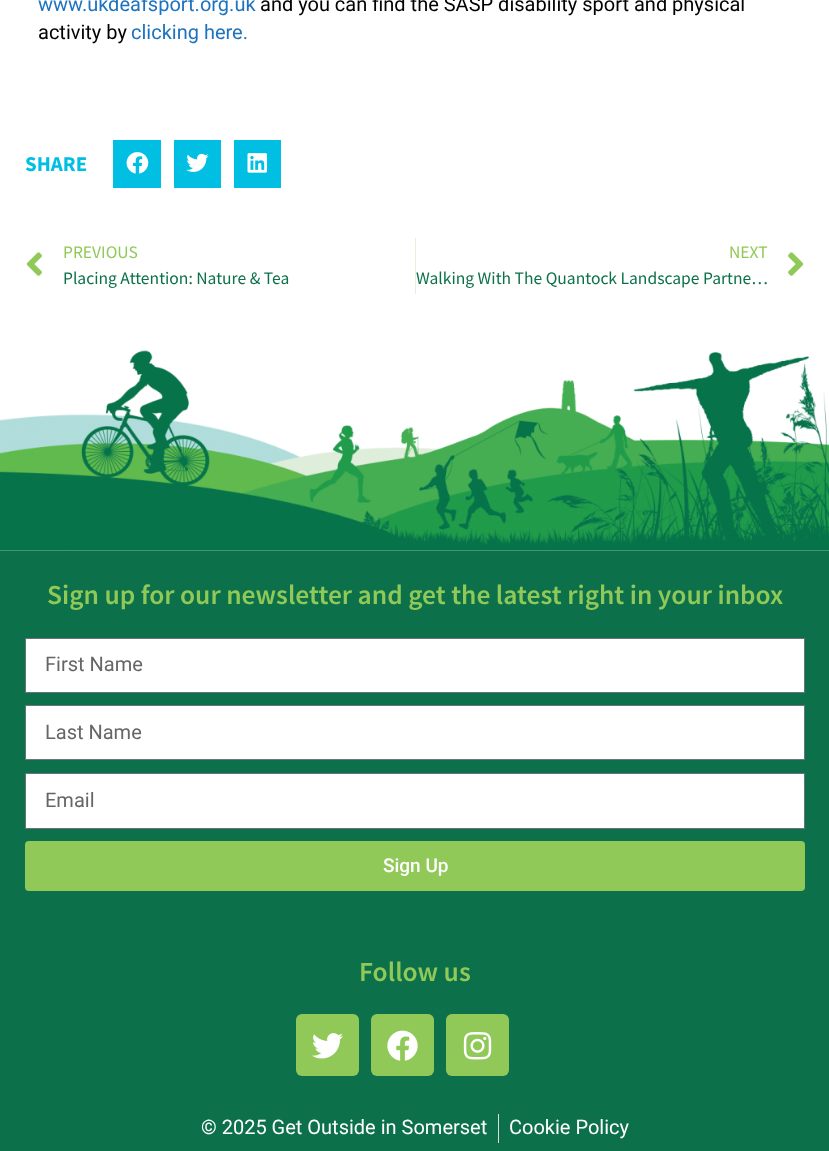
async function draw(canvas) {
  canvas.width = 829
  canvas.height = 1151
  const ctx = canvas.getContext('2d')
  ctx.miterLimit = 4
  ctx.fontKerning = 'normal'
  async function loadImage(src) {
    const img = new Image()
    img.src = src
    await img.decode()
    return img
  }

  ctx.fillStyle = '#fff'
  ctx.fillRect(0, 0, 829, 1151)
  ctx.font = '20px Roboto'
  ctx.fillStyle = '#1e73be'
  ctx.fillText('www.ukdeafsport.org.uk', 38, 11)
  ctx.fillStyle = '#000'
  ctx.fillText('and you can find the SASP disability sport and physical', 260, 11)
  ctx.fillText('activity by', 38, 39)
  ctx.fillStyle = '#1e73be'
  ctx.fillText('clicking here.', 131, 39)
  ctx.font = 'bold 21px Source Sans Pro'
  ctx.fillStyle = '#00bfe3'
  ctx.fillText('SHARE', 25, 171)
  ctx.fillRect(113, 140, 48, 48)
  ctx.drawImage(await loadImage('image0.png'), 126, 152, 23, 22)
  ctx.fillRect(174, 140, 47, 48)
  ctx.drawImage(await loadImage('image1.png'), 186, 153, 23, 19)
  ctx.fillRect(234, 140, 47, 48)
  ctx.drawImage(await loadImage('image2.png'), 247, 153, 21, 20)
  ctx.drawImage(await loadImage('image3.png'), 26, 252, 16, 24)
  ctx.font = '17.5px Source Sans Pro'
  ctx.fillStyle = '#90c958'
  ctx.fillText('PREVIOUS', 63, 258)
  ctx.fillStyle = '#0c714a'
  ctx.fillText('Placing Attention: Nature & Tea', 63, 284)
  ctx.fillStyle = '#e2f0dc'
  ctx.fillRect(415, 238, 1, 56)
  ctx.fillStyle = '#90c958'
  ctx.fillText('NEXT', 729, 258)
  ctx.fillStyle = '#0c714a'
  ctx.fillText('Walking With The Quantock Landscape Partne…', 416, 284)
  ctx.drawImage(await loadImage('image4.png'), 788, 252, 16, 24)
  ctx.drawImage(await loadImage('image5.png'), 0, 350, 829, 201)
  ctx.fillRect(0, 551, 829, 600)
  ctx.font = '600 27.5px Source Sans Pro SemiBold'
  ctx.fillStyle = '#90c958'
  ctx.fillText('Sign up for our newsletter and get the latest right in your inbox', 47, 604)
  ctx.fillStyle = '#fff'
  ctx.beginPath()
  ctx.rect(25.5, 638.5, 779, 54)
  ctx.fill()
  ctx.strokeStyle = '#69727d'
  ctx.stroke()
  ctx.font = '20px Roboto'
  ctx.fillStyle = '#666'
  ctx.fillText('First Name', 45, 671)
  ctx.fillStyle = '#fff'
  ctx.beginPath()
  ctx.rect(25.5, 705.5, 779, 54)
  ctx.fill()
  ctx.stroke()
  ctx.fillStyle = '#666'
  ctx.fillText('Last Name', 45, 739)
  ctx.fillStyle = '#fff'
  ctx.beginPath()
  ctx.rect(25.5, 773.5, 779, 55)
  ctx.fill()
  ctx.stroke()
  ctx.fillStyle = '#666'
  ctx.fillText('Email', 45, 807)
  ctx.fillStyle = '#90c958'
  ctx.beginPath()
  ctx.roundRect(25, 841, 780, 50, 4)
  ctx.fill()
  ctx.font = '500 19px Roboto'
  ctx.fillStyle = '#fff'
  ctx.fillText('Sign Up', 383, 872)
  ctx.font = '600 27.5px Source Sans Pro SemiBold'
  ctx.fillStyle = '#90c958'
  ctx.fillText('Follow us', 359, 981)
  ctx.beginPath()
  ctx.roundRect(296, 1014, 63, 62, 6)
  ctx.fill()
  ctx.drawImage(await loadImage('image6.png'), 312, 1033, 31, 26)
  ctx.beginPath()
  ctx.roundRect(371, 1014, 63, 62, 6)
  ctx.fill()
  ctx.drawImage(await loadImage('image7.png'), 387, 1030, 31, 31)
  ctx.beginPath()
  ctx.roundRect(446, 1014, 63, 62, 6)
  ctx.fill()
  ctx.drawImage(await loadImage('image8.png'), 463, 1032, 29, 28)
  ctx.font = '20px Roboto'
  ctx.fillStyle = '#fff'
  ctx.fillText('© 2025 Get Outside in Somerset', 201, 1134)
  ctx.fillStyle = '#ddd'
  ctx.fillRect(498, 1114, 1, 29)
  ctx.fillStyle = '#fff'
  ctx.fillText('Cookie Policy', 509, 1134)
}

draw(document.querySelector('canvas'))
